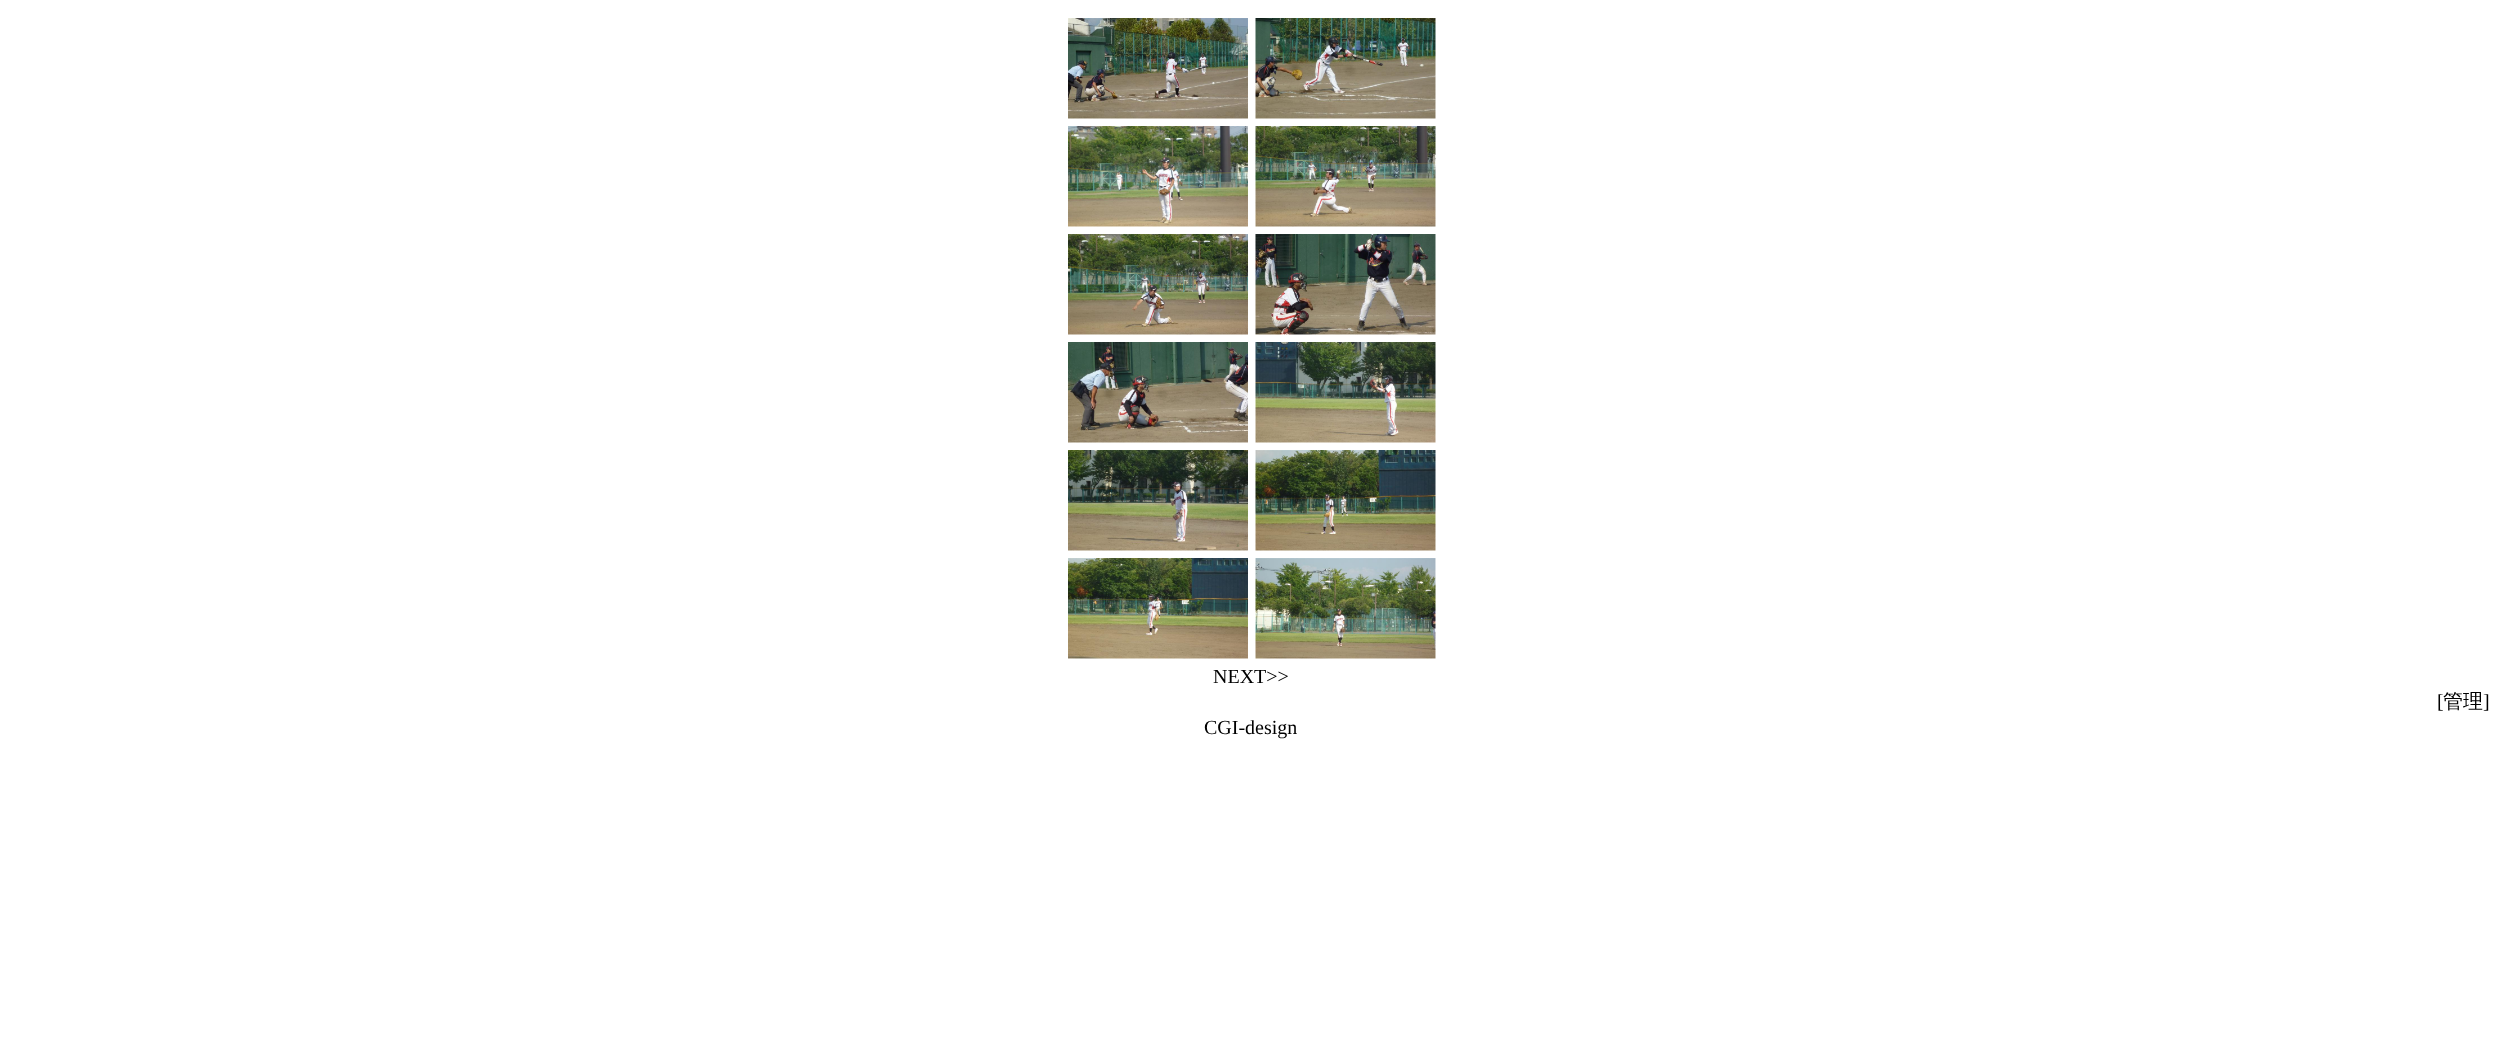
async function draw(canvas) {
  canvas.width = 2502
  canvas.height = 1063
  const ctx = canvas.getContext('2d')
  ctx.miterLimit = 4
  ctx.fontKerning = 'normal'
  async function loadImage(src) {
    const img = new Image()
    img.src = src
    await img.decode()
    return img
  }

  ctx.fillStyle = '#fff'
  ctx.fillRect(0, 0, 2502, 1063)
  ctx.drawImage(await loadImage('image0.png'), 1068, 18, 180, 101)
  ctx.drawImage(await loadImage('image1.png'), 1255, 18, 181, 101)
  ctx.drawImage(await loadImage('image2.png'), 1068, 126, 180, 101)
  ctx.drawImage(await loadImage('image3.png'), 1255, 126, 181, 101)
  ctx.drawImage(await loadImage('image4.png'), 1068, 234, 180, 101)
  ctx.drawImage(await loadImage('image5.png'), 1255, 234, 181, 101)
  ctx.drawImage(await loadImage('image6.png'), 1068, 342, 180, 101)
  ctx.drawImage(await loadImage('image7.png'), 1255, 342, 181, 101)
  ctx.drawImage(await loadImage('image8.png'), 1068, 450, 180, 101)
  ctx.drawImage(await loadImage('image9.png'), 1255, 450, 181, 101)
  ctx.drawImage(await loadImage('image10.png'), 1068, 558, 180, 101)
  ctx.drawImage(await loadImage('image11.png'), 1255, 558, 181, 101)
  ctx.font = '20px Liberation Serif'
  ctx.fillStyle = '#000'
  ctx.fillText('NEXT>>', 1213, 683)
  ctx.fillText('[', 2437, 708)
  ctx.font = '500 20px WenQuanYi Zen Hei'
  ctx.fillText('管理', 2443, 708)
  ctx.font = '20px Liberation Serif'
  ctx.fillText(']', 2483, 708)
  ctx.fillText('CGI-design', 1204, 734)
}

draw(document.querySelector('canvas'))
